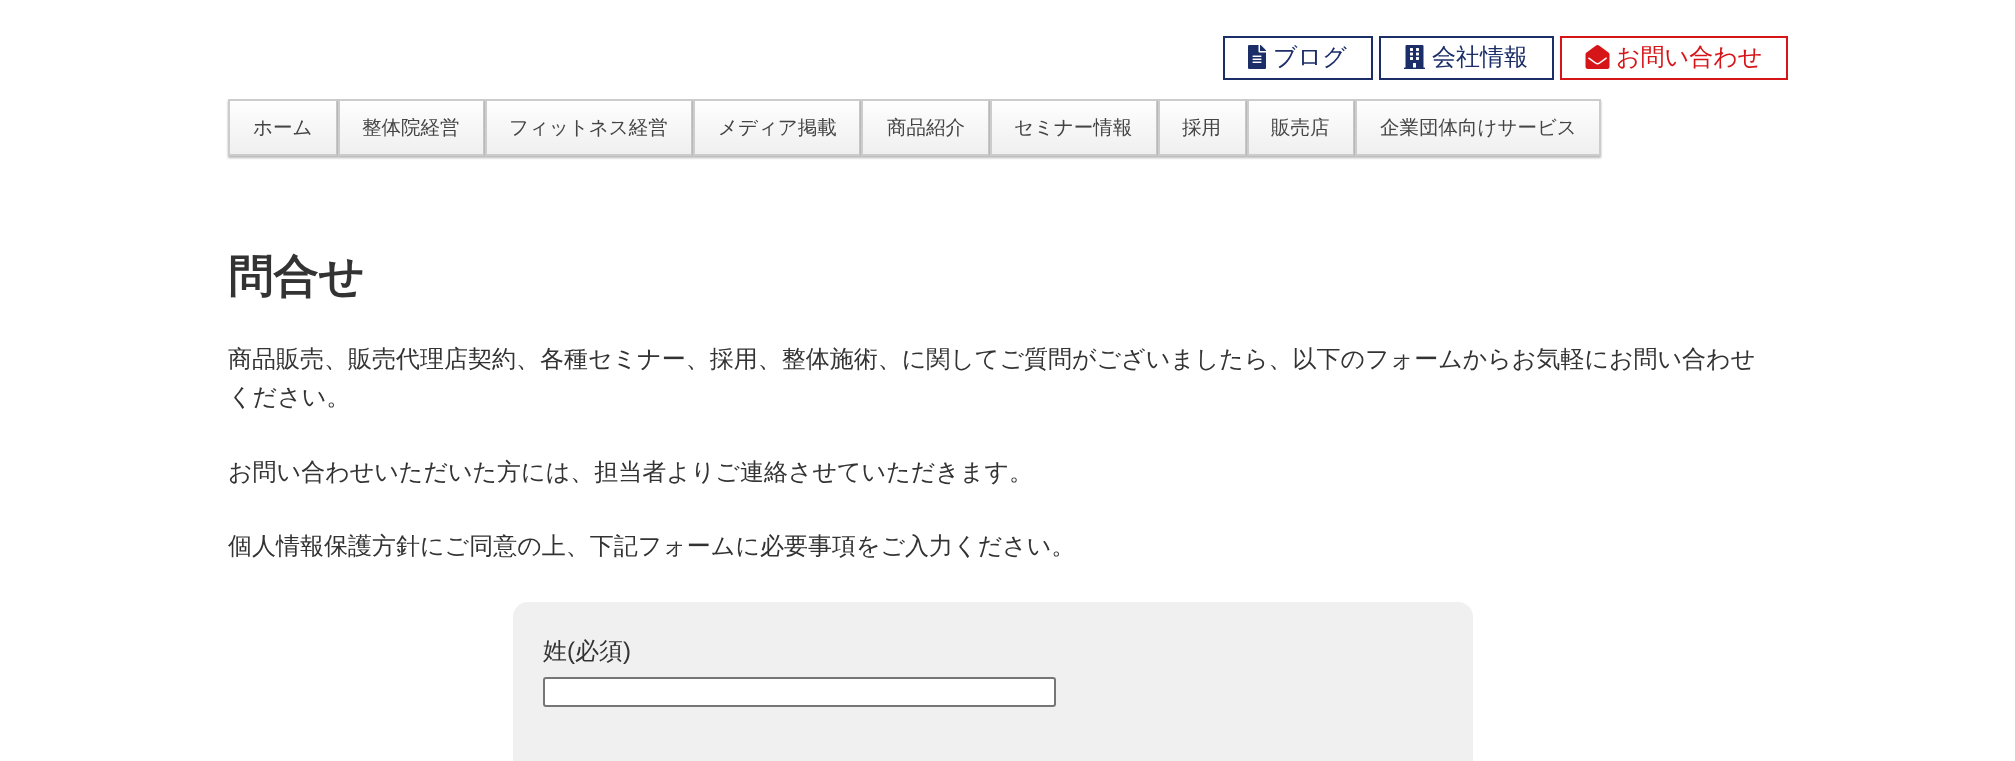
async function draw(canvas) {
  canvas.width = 2015
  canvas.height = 761
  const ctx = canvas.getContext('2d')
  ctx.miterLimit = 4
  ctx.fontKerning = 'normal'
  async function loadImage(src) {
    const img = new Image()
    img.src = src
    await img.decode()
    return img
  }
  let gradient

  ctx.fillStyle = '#fff'
  ctx.fillRect(0, 0, 2015, 761)
  ctx.strokeStyle = '#1c2e68'
  ctx.lineWidth = 2
  ctx.strokeRect(1224, 37, 148, 42)
  ctx.drawImage(await loadImage('image0.png'), 1248, 45, 18, 24)
  ctx.font = '500 24px WenQuanYi Zen Hei'
  ctx.fillStyle = '#1c2e68'
  ctx.fillText('ブログ', 1273, 65)
  ctx.strokeRect(1380, 37, 173, 42)
  ctx.drawImage(await loadImage('image1.png'), 1404, 45, 21, 24)
  ctx.fillText('会社情報', 1432, 65)
  ctx.strokeStyle = '#d61519'
  ctx.strokeRect(1561, 37, 226, 42)
  ctx.drawImage(await loadImage('image2.png'), 1585, 45, 25, 24)
  ctx.fillStyle = '#d61519'
  ctx.fillText('お問い合わせ', 1616, 65)
  ctx.fillStyle = '#00000047'
  ctx.filter = 'blur(1px)'
  ctx.beginPath()
  ctx.rect(228, 101, 110, 57)
  ctx.fill()
  ctx.filter = 'none'
  gradient = ctx.createLinearGradient(283, 101, 283, 155)
  gradient.addColorStop(0, '#fefefe')
  gradient.addColorStop(1, '#efefef')
  ctx.fillStyle = gradient
  ctx.fillRect(230, 101, 106, 53)
  ctx.strokeStyle = '#ccc'
  ctx.strokeRect(229, 100, 108, 55)
  ctx.font = '500 19.5px WenQuanYi Zen Hei'
  ctx.fillStyle = '#444'
  ctx.fillText('ホーム', 253, 134)
  ctx.fillStyle = '#00000047'
  ctx.filter = 'blur(1px)'
  ctx.beginPath()
  ctx.rect(338, 101, 147, 57)
  ctx.fill()
  ctx.filter = 'none'
  gradient = ctx.createLinearGradient(411, 101, 411, 155)
  gradient.addColorStop(0, '#fefefe')
  gradient.addColorStop(1, '#efefef')
  ctx.fillStyle = gradient
  ctx.fillRect(340, 101, 143, 53)
  ctx.strokeRect(339, 100, 145, 55)
  ctx.fillStyle = '#444'
  ctx.fillText('整体院経営', 362, 134)
  ctx.fillStyle = '#00000047'
  ctx.filter = 'blur(1px)'
  ctx.beginPath()
  ctx.rect(485, 101, 208, 57)
  ctx.fill()
  ctx.filter = 'none'
  gradient = ctx.createLinearGradient(589, 101, 589, 155)
  gradient.addColorStop(0, '#fefefe')
  gradient.addColorStop(1, '#efefef')
  ctx.fillStyle = gradient
  ctx.fillRect(487, 101, 204, 53)
  ctx.strokeRect(486, 100, 206, 55)
  ctx.fillStyle = '#444'
  ctx.fillText('フィットネス経営', 509, 134)
  ctx.fillStyle = '#00000047'
  ctx.filter = 'blur(1px)'
  ctx.beginPath()
  ctx.rect(693, 101, 168, 57)
  ctx.fill()
  ctx.filter = 'none'
  gradient = ctx.createLinearGradient(777, 101, 777, 155)
  gradient.addColorStop(0, '#fefefe')
  gradient.addColorStop(1, '#efefef')
  ctx.fillStyle = gradient
  ctx.fillRect(695, 101, 164, 53)
  ctx.strokeRect(694, 100, 166, 55)
  ctx.fillStyle = '#444'
  ctx.fillText('メディア掲載', 718, 134)
  ctx.fillStyle = '#00000047'
  ctx.filter = 'blur(1px)'
  ctx.beginPath()
  ctx.rect(861, 101, 129, 57)
  ctx.fill()
  ctx.filter = 'none'
  gradient = ctx.createLinearGradient(926, 101, 926, 155)
  gradient.addColorStop(0, '#fefefe')
  gradient.addColorStop(1, '#efefef')
  ctx.fillStyle = gradient
  ctx.fillRect(863, 101, 125, 53)
  ctx.strokeRect(862, 100, 127, 55)
  ctx.fillStyle = '#444'
  ctx.fillText('商品紹介', 887, 134)
  ctx.fillStyle = '#00000047'
  ctx.filter = 'blur(1px)'
  ctx.beginPath()
  ctx.rect(990, 101, 168, 57)
  ctx.fill()
  ctx.filter = 'none'
  gradient = ctx.createLinearGradient(1074, 101, 1074, 155)
  gradient.addColorStop(0, '#fefefe')
  gradient.addColorStop(1, '#efefef')
  ctx.fillStyle = gradient
  ctx.fillRect(992, 101, 164, 53)
  ctx.strokeRect(991, 100, 166, 55)
  ctx.fillStyle = '#444'
  ctx.fillText('セミナー情報', 1014, 134)
  ctx.fillStyle = '#00000047'
  ctx.filter = 'blur(1px)'
  ctx.beginPath()
  ctx.rect(1158, 101, 89, 57)
  ctx.fill()
  ctx.filter = 'none'
  gradient = ctx.createLinearGradient(1202, 101, 1202, 155)
  gradient.addColorStop(0, '#fefefe')
  gradient.addColorStop(1, '#efefef')
  ctx.fillStyle = gradient
  ctx.fillRect(1160, 101, 85, 53)
  ctx.strokeRect(1159, 100, 87, 55)
  ctx.fillStyle = '#444'
  ctx.fillText('採用', 1182, 134)
  ctx.fillStyle = '#00000047'
  ctx.filter = 'blur(1px)'
  ctx.beginPath()
  ctx.rect(1247, 101, 108, 57)
  ctx.fill()
  ctx.filter = 'none'
  gradient = ctx.createLinearGradient(1301, 101, 1301, 155)
  gradient.addColorStop(0, '#fefefe')
  gradient.addColorStop(1, '#efefef')
  ctx.fillStyle = gradient
  ctx.fillRect(1249, 101, 104, 53)
  ctx.strokeRect(1248, 100, 106, 55)
  ctx.fillStyle = '#444'
  ctx.fillText('販売店', 1271, 134)
  ctx.fillStyle = '#00000047'
  ctx.filter = 'blur(1px)'
  ctx.beginPath()
  ctx.rect(1355, 101, 246, 57)
  ctx.fill()
  ctx.filter = 'none'
  gradient = ctx.createLinearGradient(1478, 100, 1478, 155)
  gradient.addColorStop(0, '#fefefe')
  gradient.addColorStop(1, '#efefef')
  ctx.fillStyle = gradient
  ctx.fillRect(1357, 101, 242, 53)
  ctx.strokeRect(1356, 100, 244, 55)
  ctx.fillStyle = '#444'
  ctx.fillText('企業団体向けサービス', 1380, 134)
  ctx.font = 'bold 45px WenQuanYi Zen Hei'
  ctx.fillStyle = '#333'
  ctx.fillText('問合せ', 228, 292)
  ctx.font = '500 24px WenQuanYi Zen Hei'
  ctx.fillText('商品販売、販売代理店契約、各種セミナー、採用、整体施術、に関してご質問がございましたら、以下のフォームからお気軽にお問い合わせ', 228, 367)
  ctx.fillText('ください。', 228, 405)
  ctx.fillText('お問い合わせいただいた方には、担当者よりご連絡させていただきます。', 228, 480)
  ctx.fillText('個人情報保護方針にご同意の上、下記フォームに必要事項をご入力ください。', 228, 554)
  ctx.fillStyle = '#f0f0f0'
  ctx.beginPath()
  ctx.roundRect(513, 602, 960, 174, 15)
  ctx.fill()
  ctx.fillStyle = '#333'
  ctx.fillText('姓', 543, 659)
  ctx.font = '24px Liberation Sans'
  ctx.fillText('(', 567, 659)
  ctx.font = '500 24px WenQuanYi Zen Hei'
  ctx.fillText('必須', 575, 659)
  ctx.font = '24px Liberation Sans'
  ctx.fillText(')', 623, 659)
  ctx.fillStyle = '#fff'
  ctx.beginPath()
  ctx.roundRect(544, 678, 511, 28, 2)
  ctx.fill()
  ctx.strokeStyle = '#767676'
  ctx.stroke()
}

draw(document.querySelector('canvas'))
